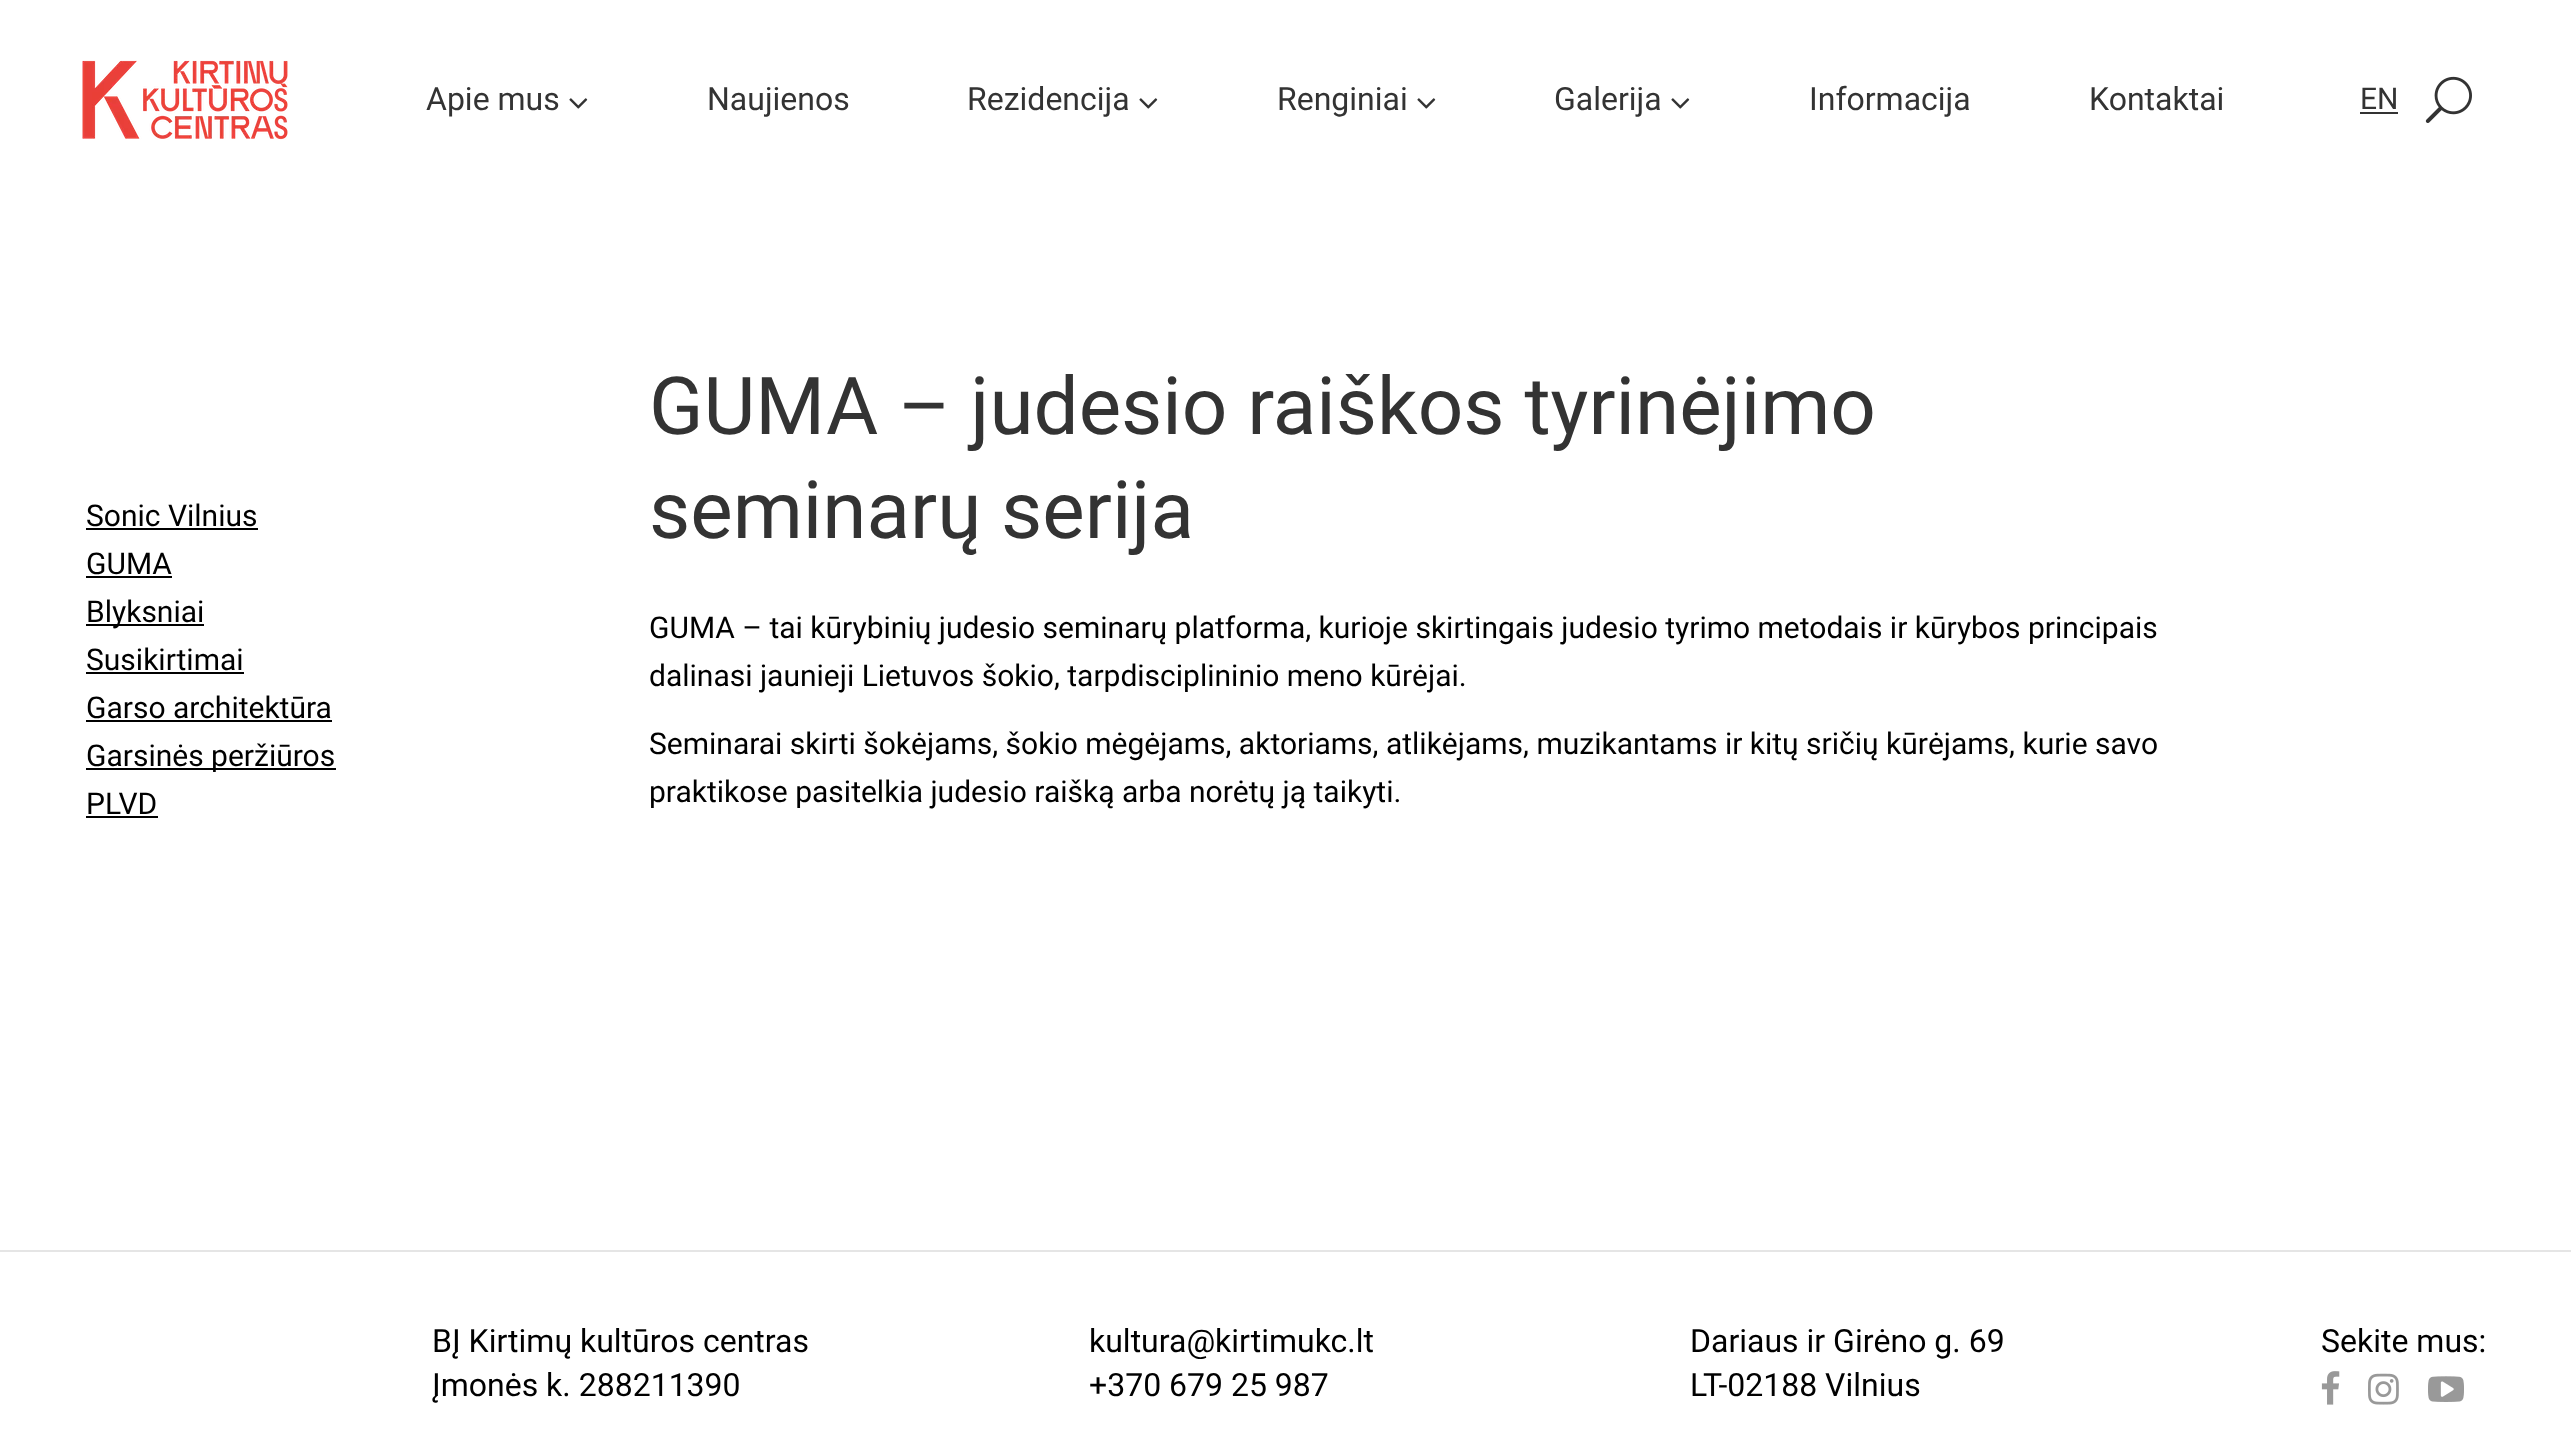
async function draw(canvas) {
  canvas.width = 2571
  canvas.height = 1429
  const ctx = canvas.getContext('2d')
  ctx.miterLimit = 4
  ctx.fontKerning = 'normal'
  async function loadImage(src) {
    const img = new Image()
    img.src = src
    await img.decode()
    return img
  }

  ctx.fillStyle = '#fff'
  ctx.fillRect(0, 0, 2571, 1429)
  ctx.drawImage(await loadImage('image0.png'), 82, 60, 206, 80)
  ctx.font = '32px Roboto'
  ctx.fillStyle = '#333'
  ctx.fillText('Apie mus', 426, 110)
  ctx.drawImage(await loadImage('image1.png'), 569, 98, 19, 11)
  ctx.fillText('Naujienos', 707, 110)
  ctx.fillText('Rezidencija', 967, 110)
  ctx.drawImage(await loadImage('image1.png'), 1139, 98, 19, 11)
  ctx.fillText('Renginiai', 1277, 110)
  ctx.drawImage(await loadImage('image1.png'), 1417, 98, 19, 11)
  ctx.fillText('Galerija', 1554, 110)
  ctx.drawImage(await loadImage('image1.png'), 1671, 98, 19, 11)
  ctx.fillText('Informacija', 1809, 110)
  ctx.fillText('Kontaktai', 2089, 110)
  ctx.font = '30px Roboto'
  ctx.fillText('EN', 2360, 109)
  ctx.fillRect(2360, 112, 38, 2)
  ctx.drawImage(await loadImage('image2.png'), 2425, 76, 47, 47)
  ctx.fillStyle = '#000'
  ctx.fillText('Sonic Vilnius', 86, 526)
  ctx.fillRect(86, 528, 172, 2)
  ctx.fillText('GUMA', 86, 574)
  ctx.fillRect(86, 576, 86, 2)
  ctx.fillRect(86, 624, 118, 2)
  ctx.fillText('Blyksniai', 86, 622)
  ctx.fillText('Susikirtimai', 86, 670)
  ctx.fillRect(86, 672, 158, 2)
  ctx.fillText('Garso architektūra', 86, 718)
  ctx.fillRect(86, 720, 246, 2)
  ctx.fillRect(86, 768, 250, 2)
  ctx.fillText('Garsinės peržiūros', 86, 766)
  ctx.fillText('PLVD', 86, 814)
  ctx.fillRect(86, 816, 72, 2)
  ctx.font = '80px Roboto'
  ctx.fillStyle = '#333'
  ctx.fillText('GUMA – judesio raiškos tyrinėjimo', 649, 434)
  ctx.fillText('seminarų serija', 649, 538)
  ctx.font = '30px Roboto'
  ctx.fillStyle = '#000'
  ctx.fillText('GUMA – tai kūrybinių judesio seminarų platforma, kurioje skirtingais judesio tyrimo metodais ir kūrybos principais', 649, 638)
  ctx.fillText('dalinasi jaunieji Lietuvos šokio, tarpdisciplininio meno kūrėjai.', 649, 686)
  ctx.fillText('Seminarai skirti šokėjams, šokio mėgėjams, aktoriams, atlikėjams, muzikantams ir kitų sričių kūrėjams, kurie savo', 649, 754)
  ctx.fillText('praktikose pasitelkia judesio raišką arba norėtų ją taikyti.', 649, 802)
  ctx.fillStyle = '#e5e5e5'
  ctx.fillRect(0, 1250, 2571, 2)
  ctx.font = '32px Roboto'
  ctx.fillStyle = '#000'
  ctx.fillText('BĮ Kirtimų kultūros centras', 432, 1352)
  ctx.fillText('Įmonės k. 288211390', 432, 1396)
  ctx.fillText('kultura@kirtimukc.lt', 1089, 1352)
  ctx.fillText('+370 679 25 987', 1089, 1396)
  ctx.fillText('Dariaus ir Girėno g. 69', 1690, 1352)
  ctx.fillText('LT-02188 Vilnius', 1690, 1396)
  ctx.fillText('Sekite mus:', 2321, 1352)
  ctx.drawImage(await loadImage('image3.png'), 2321, 1371, 19, 34)
  ctx.drawImage(await loadImage('image4.png'), 2368, 1373, 31, 32)
  ctx.drawImage(await loadImage('image5.png'), 2428, 1376, 36, 26)
}

draw(document.querySelector('canvas'))
